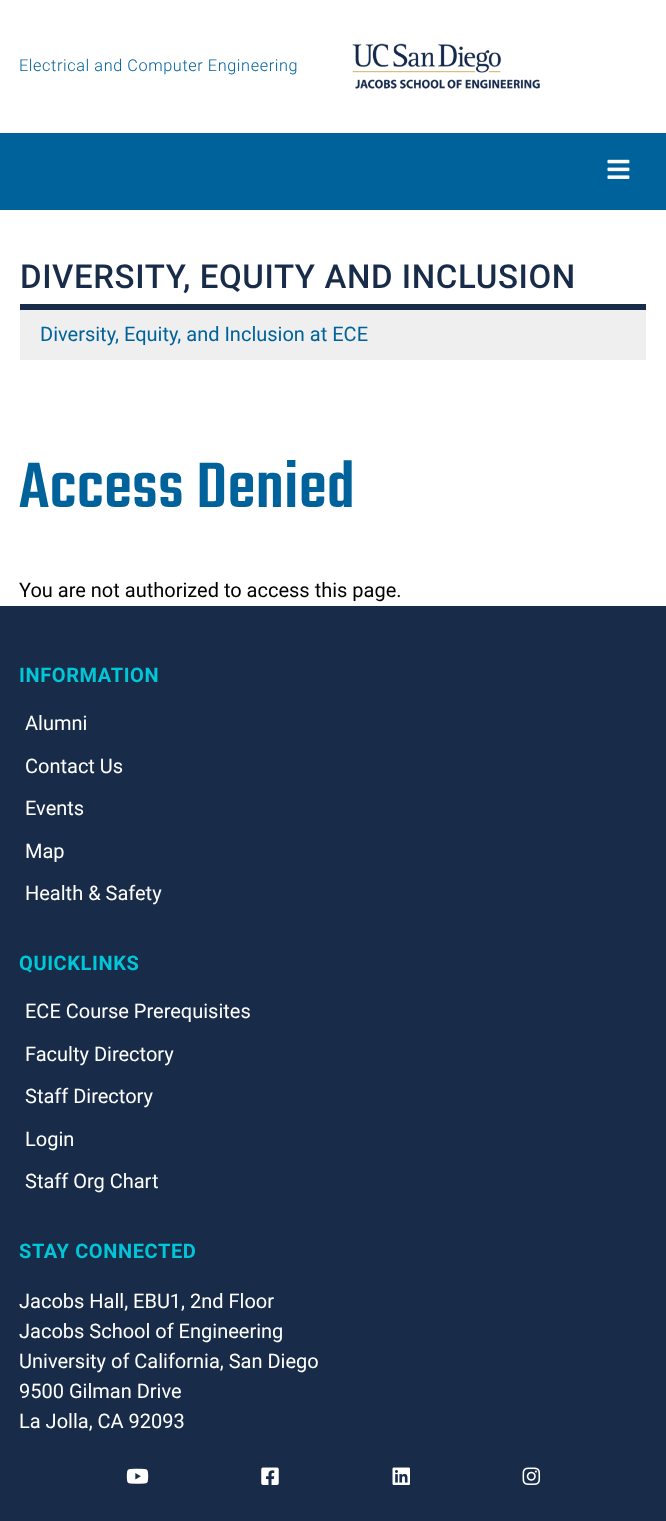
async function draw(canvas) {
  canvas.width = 666
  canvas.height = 1521
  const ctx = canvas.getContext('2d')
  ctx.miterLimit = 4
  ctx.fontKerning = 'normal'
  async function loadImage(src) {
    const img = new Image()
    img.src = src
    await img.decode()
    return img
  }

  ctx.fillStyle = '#fff'
  ctx.fillRect(0, 0, 666, 1521)
  ctx.letterSpacing = '0.6px'
  ctx.font = '300 16.25px Roboto'
  ctx.fillStyle = '#00629b'
  ctx.fillText('Electrical and Computer Engineering', 19, 71)
  ctx.drawImage(await loadImage('image0.png'), 352, 43, 188, 46)
  ctx.fillRect(0, 133, 666, 77)
  ctx.drawImage(await loadImage('image1.png'), 607, 159, 23, 20)
  ctx.fillStyle = '#182b49'
  ctx.fillRect(20, 304, 626, 6)
  ctx.font = '500 33px Roboto'
  ctx.fillText('DIVERSITY, EQUITY AND INCLUSION', 20, 288)
  ctx.fillStyle = '#efefef'
  ctx.fillRect(20, 310, 626, 50)
  ctx.letterSpacing = '0px'
  ctx.font = '20px Roboto'
  ctx.fillStyle = '#00629b'
  ctx.fillText('Diversity, Equity, and Inclusion at ECE', 40, 341)
  ctx.letterSpacing = '0.6px'
  ctx.font = '500 70px Teko'
  ctx.fillText('Access Denied', 19, 507)
  ctx.letterSpacing = '0px'
  ctx.font = '20px Roboto'
  ctx.fillStyle = '#000'
  ctx.fillText('You are not authorized to access this page.', 19, 597)
  ctx.fillStyle = '#182b49'
  ctx.fillRect(0, 606, 666, 915)
  ctx.letterSpacing = '0.6px'
  ctx.font = 'bold 20px Roboto'
  ctx.fillStyle = '#00c6d7'
  ctx.fillText('INFORMATION', 19, 682)
  ctx.letterSpacing = '0px'
  ctx.font = '20px Roboto'
  ctx.fillStyle = '#fff'
  ctx.fillText('Alumni', 25, 730)
  ctx.fillText('Contact Us', 25, 773)
  ctx.fillText('Events', 25, 815)
  ctx.fillText('Map', 25, 858)
  ctx.fillText('Health & Safety', 25, 900)
  ctx.letterSpacing = '0.6px'
  ctx.font = 'bold 20px Roboto'
  ctx.fillStyle = '#00c6d7'
  ctx.fillText('QUICKLINKS', 19, 970)
  ctx.letterSpacing = '0px'
  ctx.font = '20px Roboto'
  ctx.fillStyle = '#fff'
  ctx.fillText('ECE Course Prerequisites', 25, 1018)
  ctx.fillText('Faculty Directory', 25, 1061)
  ctx.fillText('Staff Directory', 25, 1103)
  ctx.fillText('Login', 25, 1146)
  ctx.fillText('Staff Org Chart', 25, 1188)
  ctx.letterSpacing = '0.6px'
  ctx.font = 'bold 20px Roboto'
  ctx.fillStyle = '#00c6d7'
  ctx.fillText('STAY CONNECTED', 19, 1258)
  ctx.letterSpacing = '0px'
  ctx.font = '20px Roboto'
  ctx.fillStyle = '#fff'
  ctx.fillText('Jacobs Hall, EBU1, 2nd Floor', 19, 1308)
  ctx.fillText('Jacobs School of Engineering', 19, 1338)
  ctx.fillText('University of California, San Diego', 19, 1368)
  ctx.fillText('9500 Gilman Drive', 19, 1398)
  ctx.fillText('La Jolla, CA 92093', 19, 1428)
  ctx.drawImage(await loadImage('image2.png'), 126, 1468, 23, 16)
  ctx.drawImage(await loadImage('image3.png'), 261, 1467, 18, 18)
  ctx.drawImage(await loadImage('image4.png'), 392, 1467, 18, 18)
  ctx.drawImage(await loadImage('image5.png'), 522, 1467, 19, 18)
}

draw(document.querySelector('canvas'))
